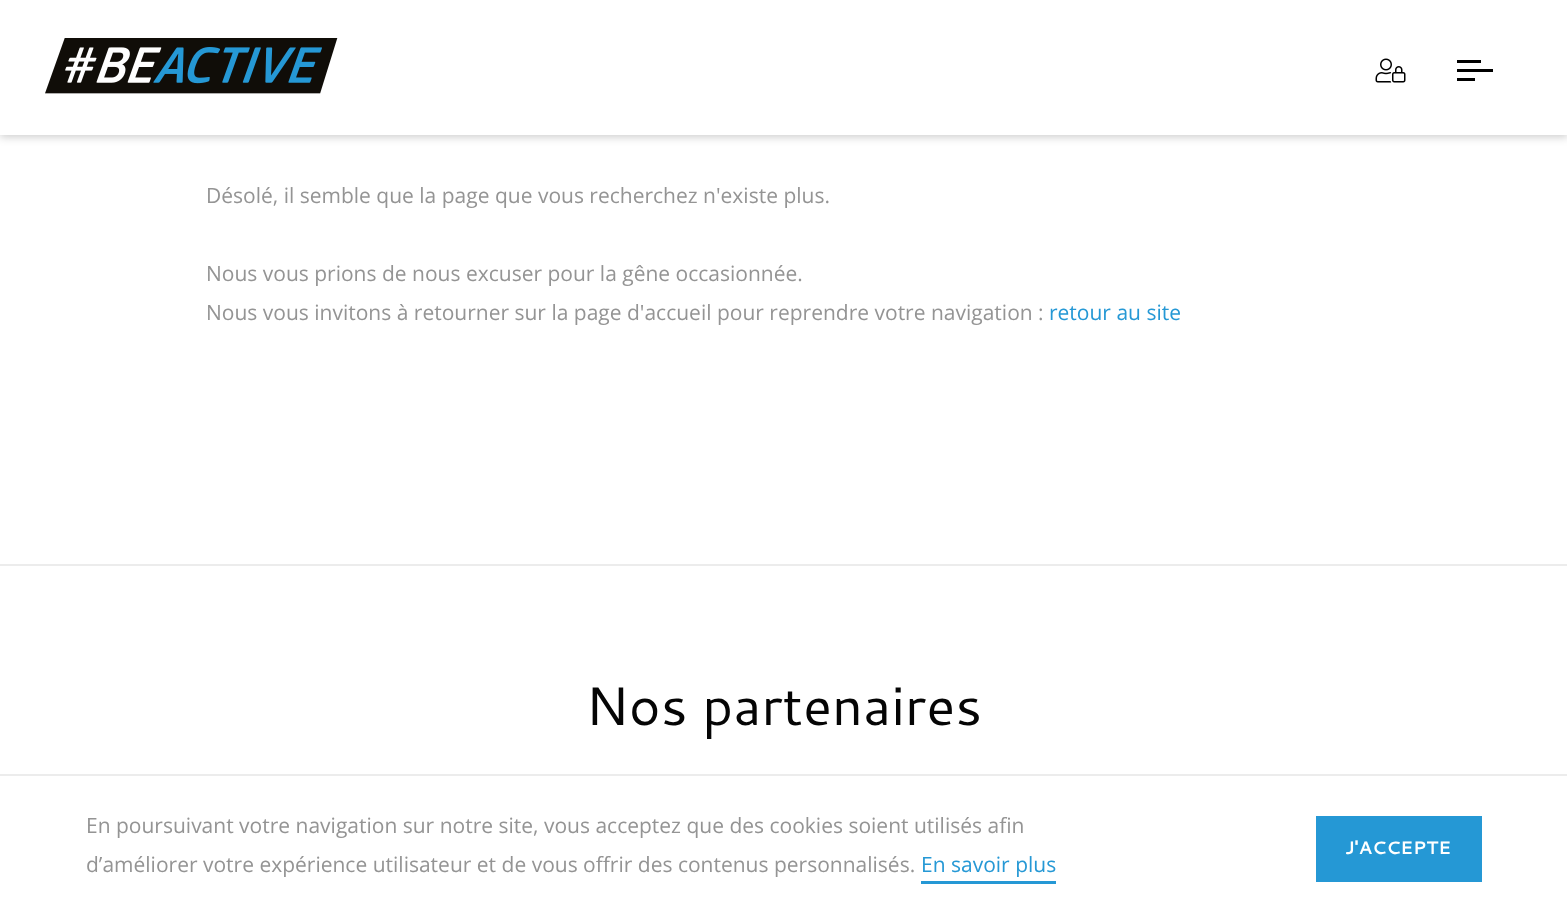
async function draw(canvas) {
  canvas.width = 1567
  canvas.height = 913
  const ctx = canvas.getContext('2d')
  ctx.miterLimit = 4
  ctx.fontKerning = 'normal'
  async function loadImage(src) {
    const img = new Image()
    img.src = src
    await img.decode()
    return img
  }

  ctx.fillStyle = '#fff'
  ctx.fillRect(0, 0, 1567, 913)
  ctx.fillStyle = '#00000033'
  ctx.filter = 'blur(4px)'
  ctx.beginPath()
  ctx.rect(0, 2, 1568, 135)
  ctx.fill()
  ctx.filter = 'none'
  ctx.fillStyle = '#fff'
  ctx.fillRect(0, 0, 1567, 135)
  ctx.drawImage(await loadImage('image0.png'), 45, 38, 293, 56)
  ctx.drawImage(await loadImage('image1.png'), 1375, 58, 31, 25)
  ctx.fillStyle = '#000'
  ctx.fillRect(1457, 60, 24, 3)
  ctx.fillRect(1457, 69, 36, 3)
  ctx.fillRect(1457, 78, 18, 3)
  ctx.fillStyle = '#ececec'
  ctx.fillRect(0, 564, 1567, 2)
  ctx.font = '21px Open Sans'
  ctx.fillStyle = '#949494'
  ctx.fillText('Désolé, il semble que la page que vous recherchez n\'existe plus.', 206, 203)
  ctx.fillText('Nous vous prions de nous excuser pour la gêne occasionnée.', 206, 281)
  ctx.fillText('Nous vous invitons à retourner sur la page d\'accueil pour reprendre votre navigation :', 206, 320)
  ctx.fillStyle = '#2598d5'
  ctx.fillText('retour au site', 1049, 320)
  ctx.font = '54px Cantarell'
  ctx.fillStyle = '#050505'
  ctx.fillText('Nos partenaires', 585, 725)
  ctx.fillStyle = '#ececec'
  ctx.fillRect(0, 774, 1567, 2)
  ctx.font = '21px Open Sans'
  ctx.fillStyle = '#949494'
  ctx.fillText('En poursuivant votre navigation sur notre site, vous acceptez que des cookies soient utilisés afin', 86, 833)
  ctx.fillText('d’améliorer votre expérience utilisateur et de vous offrir des contenus personnalisés.', 86, 872)
  ctx.fillStyle = '#2598d5'
  ctx.fillText('En savoir plus', 921, 872)
  ctx.fillRect(921, 881, 135, 3)
  ctx.fillRect(1316, 816, 166, 66)
  ctx.font = 'bold 18px Cantarell'
  ctx.fillStyle = '#fff'
  ctx.fillText('J\'ACCEPTE', 1345, 854)
}

draw(document.querySelector('canvas'))
